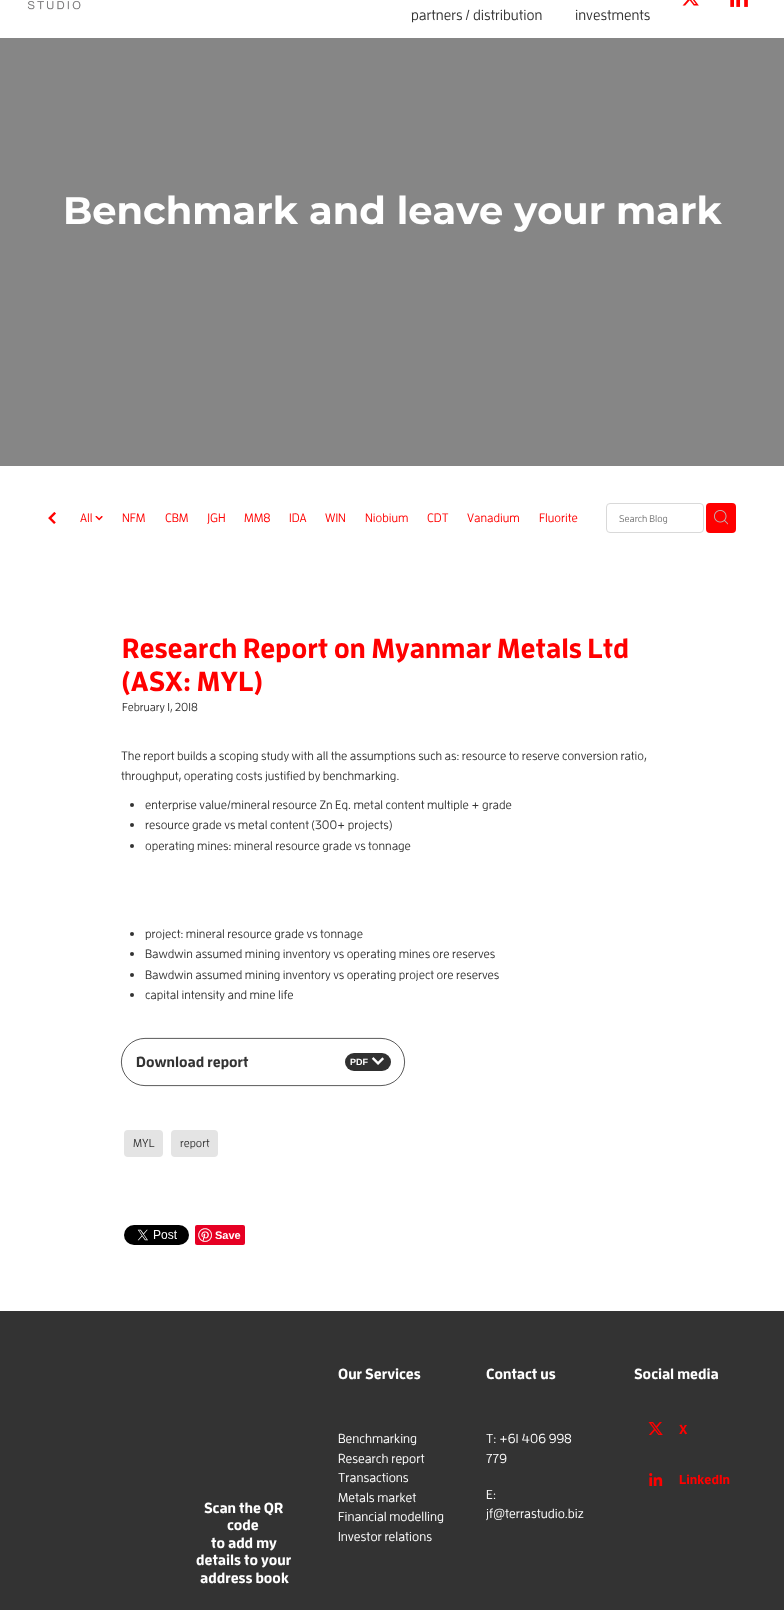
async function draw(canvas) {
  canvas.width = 784
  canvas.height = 1610
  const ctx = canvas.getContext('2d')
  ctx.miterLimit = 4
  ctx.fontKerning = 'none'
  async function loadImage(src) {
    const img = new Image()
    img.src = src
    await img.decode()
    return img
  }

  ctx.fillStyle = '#fff'
  ctx.fillRect(0, 0, 784, 1610)
  ctx.drawImage(await loadImage('image0.png'), 27, 0, 54, 10)
  ctx.drawImage(await loadImage('image1.png'), 682, 0, 17, 6)
  ctx.drawImage(await loadImage('image2.png'), 730, 0, 18, 7)
  ctx.font = '500 14.6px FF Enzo'
  ctx.fillStyle = '#333'
  ctx.fillText('partners / distribution', 411, 20)
  ctx.fillText('investments', 575, 20)
  ctx.fillStyle = '#868686'
  ctx.fillRect(0, 38, 784, 428)
  ctx.font = 'bold 38.4px Montserrat'
  ctx.fillStyle = '#fff'
  ctx.fillText('Benchmark and leave your mark', 63, 224)
  ctx.drawImage(await loadImage('image3.png'), 48, 512, 8, 12)
  ctx.font = '500 12.2px FF Enzo'
  ctx.fillStyle = '#f00'
  ctx.fillText('All', 80, 522)
  ctx.drawImage(await loadImage('image4.png'), 95, 516, 8, 5)
  ctx.fillText('NFM', 122, 522)
  ctx.fillText('CBM', 165, 522)
  ctx.fillText('JGH', 207, 522)
  ctx.fillText('MM8', 244, 522)
  ctx.fillText('IDA', 289, 522)
  ctx.fillText('WIN', 325, 522)
  ctx.fillText('Niobium', 365, 522)
  ctx.fillText('CDT', 427, 522)
  ctx.fillText('Vanadium', 467, 522)
  ctx.fillText('Fluorite', 539, 522)
  ctx.beginPath()
  ctx.roundRect(606.5, 503.5, 97, 29, 3.5)
  ctx.strokeStyle = '#d9d9d9'
  ctx.stroke()
  ctx.font = '500 9.75px FF Enzo'
  ctx.fillStyle = '#757575'
  ctx.fillText('Search Blog', 619, 522)
  ctx.fillStyle = '#f00'
  ctx.beginPath()
  ctx.roundRect(706, 503, 30, 30, 4)
  ctx.fill()
  ctx.drawImage(await loadImage('image5.png'), 714, 510, 14, 15)
  ctx.font = 'bold 27.6px "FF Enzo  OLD"'
  ctx.fillText('Research Report on Myanmar Metals Ltd', 122, 658)
  ctx.fillText('(ASX: MYL)', 122, 691)
  ctx.font = '500 11.5px FF Enzo'
  ctx.fillStyle = '#333'
  ctx.fillText('February 1, 2018', 122, 711)
  ctx.font = '500 12.2px FF Enzo'
  ctx.fillText('The report builds a scoping study with all the assumptions such as: resource to reserve conversion ratio,', 121, 760)
  ctx.fillText('throughput, operating costs justified by benchmarking.', 121, 780)
  ctx.beginPath()
  ctx.arc(132, 805, 2, 0, 2 * Math.PI)
  ctx.fill()
  ctx.fillText('enterprise value/mineral resource Zn Eq. metal content multiple + grade', 145, 809)
  ctx.beginPath()
  ctx.arc(132, 825, 2, 0, 2 * Math.PI)
  ctx.fill()
  ctx.fillText('resource grade vs metal content (300+ projects)', 145, 829)
  ctx.beginPath()
  ctx.arc(132, 846, 2, 0, 2 * Math.PI)
  ctx.fill()
  ctx.fillText('operating mines: mineral resource grade vs tonnage', 145, 850)
  ctx.beginPath()
  ctx.arc(132, 934, 2, 0, 2 * Math.PI)
  ctx.fill()
  ctx.fillText('project: mineral resource grade vs tonnage', 145, 938)
  ctx.beginPath()
  ctx.arc(132, 954, 2, 0, 2 * Math.PI)
  ctx.fill()
  ctx.fillText('Bawdwin assumed mining inventory vs operating mines ore reserves', 145, 958)
  ctx.beginPath()
  ctx.arc(132, 975, 2, 0, 2 * Math.PI)
  ctx.fill()
  ctx.fillText('Bawdwin assumed mining inventory vs operating project ore reserves', 145, 979)
  ctx.beginPath()
  ctx.arc(132, 995, 2, 0, 2 * Math.PI)
  ctx.fill()
  ctx.fillText('capital intensity and mine life', 145, 999)
  ctx.beginPath()
  ctx.roundRect(121.4, 1038.4, 283.2, 47.2, 23.6)
  ctx.strokeStyle = '#303030'
  ctx.lineWidth = 0.8
  ctx.stroke()
  ctx.font = 'bold 14.6px "FF Enzo  OLD"'
  ctx.fillText('Download report', 136, 1067)
  ctx.fillStyle = '#303030'
  ctx.beginPath()
  ctx.roundRect(345, 1053, 46, 18, 9)
  ctx.fill()
  ctx.font = 'bold 9px Liberation Sans'
  ctx.fillStyle = '#fff'
  ctx.fillText('PDF', 350, 1065)
  ctx.drawImage(await loadImage('image6.png'), 371, 1057, 13, 8)
  ctx.fillStyle = '#e4e4e4'
  ctx.beginPath()
  ctx.roundRect(124, 1130, 39, 27, 4)
  ctx.fill()
  ctx.font = '500 11.5px FF Enzo'
  ctx.fillStyle = '#333'
  ctx.fillText('MYL', 133, 1147)
  ctx.fillStyle = '#e4e4e4'
  ctx.beginPath()
  ctx.roundRect(171, 1130, 47, 27, 4)
  ctx.fill()
  ctx.fillStyle = '#333'
  ctx.fillText('report', 180, 1147)
  ctx.drawImage(await loadImage('image7.png'), 124, 1225, 65, 20)
  ctx.fillStyle = '#e60023'
  ctx.beginPath()
  ctx.roundRect(195, 1225, 50, 20, 2)
  ctx.fill()
  ctx.drawImage(await loadImage('image8.png'), 198, 1228, 14, 14)
  ctx.font = 'bold 11px Liberation Sans'
  ctx.fillStyle = '#fff'
  ctx.fillText('Save', 215, 1239)
  ctx.fillStyle = '#333'
  ctx.fillRect(0, 1311, 784, 299)
  ctx.font = 'bold 14.6px "FF Enzo  OLD"'
  ctx.fillStyle = '#fff'
  ctx.fillText('Our Services', 338, 1379)
  ctx.font = '500 13px FF Enzo'
  ctx.fillText('Benchmarking', 338, 1443)
  ctx.fillText('Research report', 338, 1463)
  ctx.fillText('Transactions', 338, 1482)
  ctx.fillText('Metals market', 338, 1502)
  ctx.fillText('Financial modelling', 338, 1521)
  ctx.fillText('Investor relations', 338, 1541)
  ctx.font = 'bold 14.6px "FF Enzo  OLD"'
  ctx.fillText('Contact us', 486, 1379)
  ctx.font = '500 13px FF Enzo'
  ctx.fillText('T: +61 406 998', 486, 1443)
  ctx.fillText('779', 486, 1463)
  ctx.fillText('E:', 486, 1499)
  ctx.fillText('jf@terrastudio.biz', 486, 1518)
  ctx.font = 'bold 14.6px "FF Enzo  OLD"'
  ctx.fillText('Social media', 634, 1379)
  ctx.drawImage(await loadImage('image9.png'), 648, 1422, 15, 13)
  ctx.font = 'bold 13px "FF Enzo  OLD"'
  ctx.fillStyle = '#f00'
  ctx.fillText('X', 679, 1434)
  ctx.drawImage(await loadImage('image10.png'), 649, 1473, 14, 13)
  ctx.fillText('LinkedIn', 679, 1484)
  ctx.font = 'bold 14.6px "FF Enzo  OLD"'
  ctx.fillStyle = '#fff'
  ctx.fillText('Scan the QR', 204, 1513)
  ctx.fillText('code ', 227, 1530)
  ctx.fillText('to add my', 211, 1548)
  ctx.fillText('details to your', 196, 1565)
  ctx.fillText('address book', 200, 1583)
}

draw(document.querySelector('canvas'))
